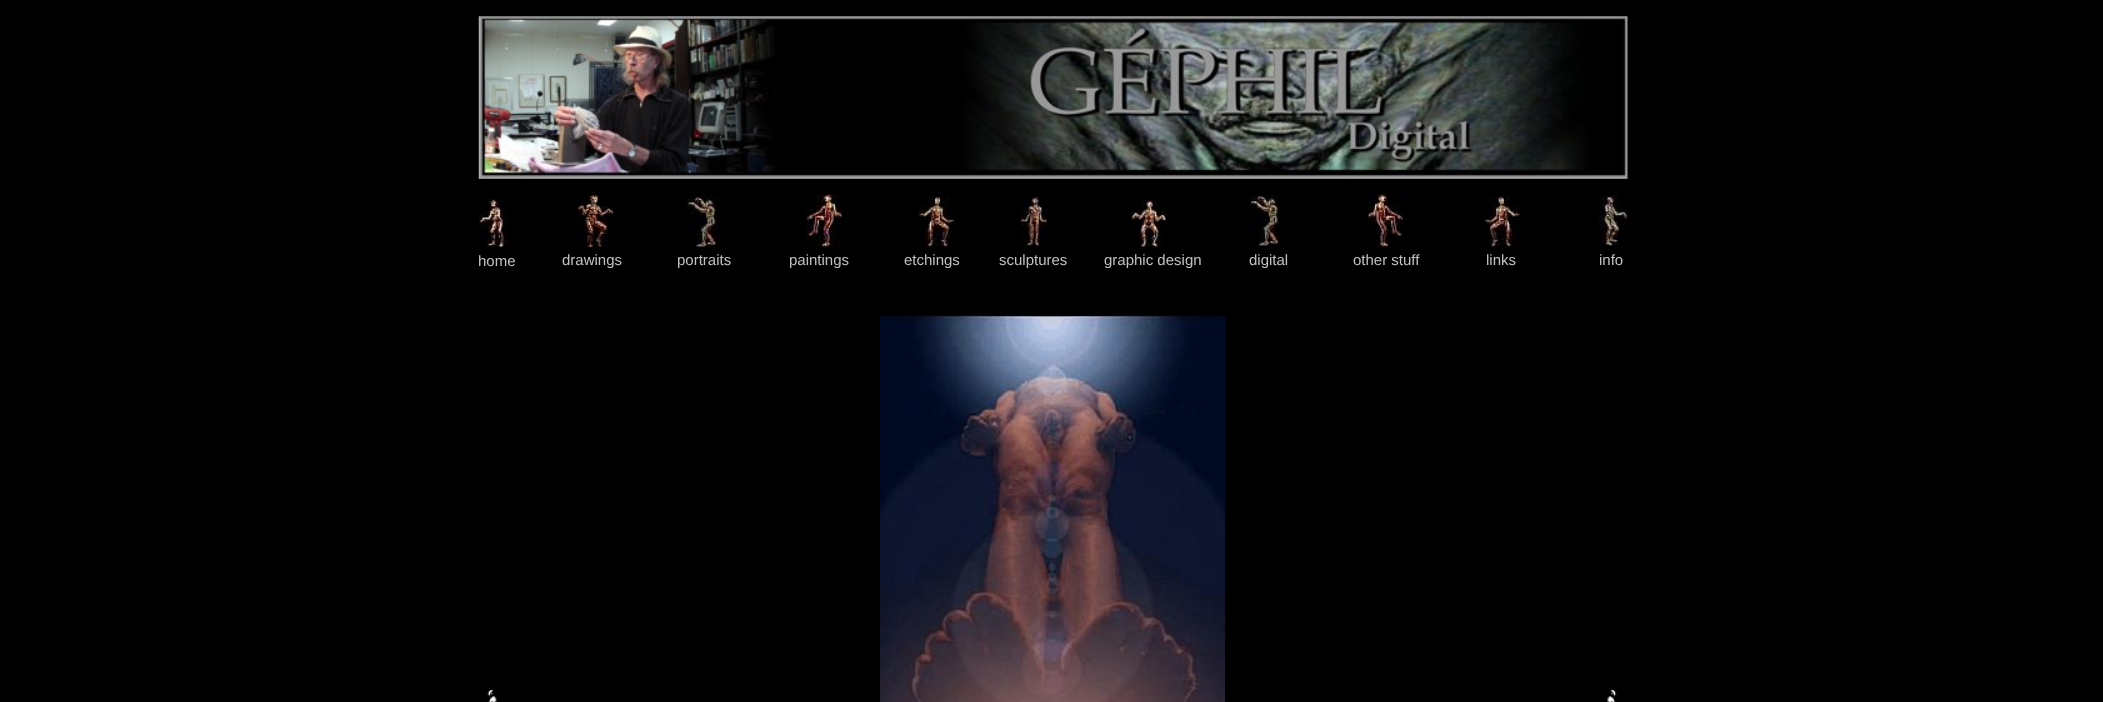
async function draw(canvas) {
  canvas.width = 2103
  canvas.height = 702
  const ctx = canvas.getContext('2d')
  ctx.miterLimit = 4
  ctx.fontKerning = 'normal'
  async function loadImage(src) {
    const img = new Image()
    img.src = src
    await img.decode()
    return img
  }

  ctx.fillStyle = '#000'
  ctx.fillRect(0, 0, 2103, 702)
  ctx.drawImage(await loadImage('image0.png'), 478, 16, 1150, 163)
  ctx.drawImage(await loadImage('image1.png'), 479, 199, 29, 49)
  ctx.drawImage(await loadImage('image2.png'), 577, 195, 37, 53)
  ctx.drawImage(await loadImage('image3.png'), 687, 196, 33, 52)
  ctx.drawImage(await loadImage('image4.png'), 806, 194, 37, 54)
  ctx.drawImage(await loadImage('image5.png'), 919, 196, 36, 51)
  ctx.drawImage(await loadImage('image6.png'), 1020, 196, 28, 50)
  ctx.drawImage(await loadImage('image7.png'), 1131, 200, 36, 48)
  ctx.drawImage(await loadImage('image8.png'), 1249, 195, 31, 51)
  ctx.drawImage(await loadImage('image9.png'), 1367, 194, 37, 54)
  ctx.drawImage(await loadImage('image10.png'), 1484, 196, 36, 51)
  ctx.drawImage(await loadImage('image11.png'), 1599, 195, 29, 51)
  ctx.font = '15px Liberation Sans'
  ctx.fillStyle = '#c0c0c0'
  ctx.fillText('home', 478, 266)
  ctx.fillText('drawings', 562, 265)
  ctx.fillText('portraits', 677, 265)
  ctx.fillText('paintings', 789, 265)
  ctx.fillText('etchings', 904, 265)
  ctx.fillText('sculptures', 999, 265)
  ctx.fillText('graphic design', 1104, 265)
  ctx.fillText('digital', 1249, 265)
  ctx.fillText('other stuff', 1353, 265)
  ctx.fillText('links', 1486, 265)
  ctx.fillText('info', 1599, 265)
  ctx.drawImage(await loadImage('image12.png'), 487, 689, 10, 13)
  ctx.drawImage(await loadImage('image13.png'), 880, 315, 345, 387)
  ctx.drawImage(await loadImage('image14.png'), 1607, 689, 10, 13)
}

draw(document.querySelector('canvas'))
